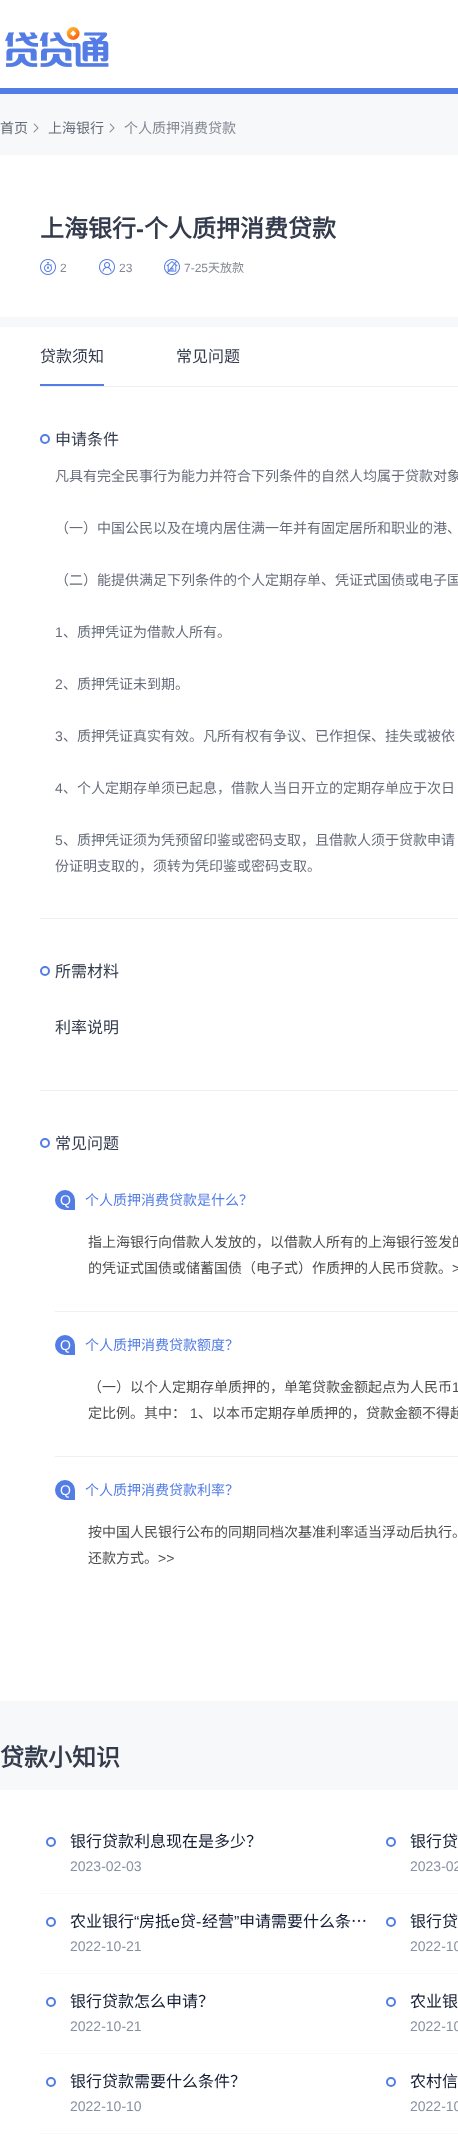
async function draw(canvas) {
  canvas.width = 458
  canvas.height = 2141
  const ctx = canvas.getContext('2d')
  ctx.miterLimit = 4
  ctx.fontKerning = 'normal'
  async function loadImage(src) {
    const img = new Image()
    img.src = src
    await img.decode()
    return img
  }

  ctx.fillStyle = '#f7f8f9'
  ctx.fillRect(0, 0, 458, 2141)
  ctx.fillStyle = '#fff'
  ctx.fillRect(0, 0, 458, 88)
  ctx.fillStyle = '#537ce4'
  ctx.fillRect(0, 88, 458, 6)
  ctx.drawImage(await loadImage('image0.png'), 5, 27, 104, 40)
  ctx.drawImage(await loadImage('image1.png'), 33, 123, 6, 10)
  ctx.font = '14px Noto Sans CJK SC'
  ctx.fillStyle = '#666c79'
  ctx.fillText('首页', 0, 133)
  ctx.drawImage(await loadImage('image1.png'), 109, 123, 6, 10)
  ctx.fillText('上海银行', 48, 133)
  ctx.fillStyle = '#838893'
  ctx.fillText('个人质押消费贷款', 124, 133)
  ctx.fillStyle = '#fff'
  ctx.fillRect(0, 155, 458, 162)
  ctx.font = 'bold 24px Noto Sans CJK SC'
  ctx.fillStyle = '#333b4c'
  ctx.fillText('上海银行', 40, 237)
  ctx.font = 'bold 24px Liberation Sans'
  ctx.fillText('-', 136, 237)
  ctx.font = 'bold 24px Noto Sans CJK SC'
  ctx.fillText('个人质押消费贷款', 144, 237)
  ctx.drawImage(await loadImage('image2.png'), 40, 259, 16, 16)
  ctx.font = '12px Liberation Sans'
  ctx.fillStyle = '#838893'
  ctx.fillText('2', 60, 272)
  ctx.drawImage(await loadImage('image3.png'), 99, 259, 16, 16)
  ctx.fillText('23', 119, 272)
  ctx.drawImage(await loadImage('image4.png'), 164, 259, 16, 16)
  ctx.fillText('7-25', 184, 272)
  ctx.font = '12px Noto Sans CJK SC'
  ctx.fillText('天放款', 208, 272)
  ctx.fillStyle = '#fff'
  ctx.fillRect(0, 327, 458, 1374)
  ctx.fillStyle = '#f0f0f0'
  ctx.fillRect(40, 386, 418, 1)
  ctx.fillStyle = '#537ce4'
  ctx.fillRect(40, 384, 64, 2)
  ctx.font = '16px Noto Sans CJK SC'
  ctx.fillStyle = '#333b4c'
  ctx.fillText('贷款须知', 40, 362)
  ctx.fillText('常见问题', 176, 362)
  ctx.beginPath()
  ctx.arc(45, 439, 4, 0, 2 * Math.PI)
  ctx.strokeStyle = '#537ce4'
  ctx.lineWidth = 2
  ctx.stroke()
  ctx.fillText('申请条件', 55, 445)
  ctx.font = '14px Noto Sans CJK SC'
  ctx.fillStyle = '#666c79'
  ctx.fillText('凡具有完全民事行为能力并符合下列条件的自然人均属于贷款对象', 55, 481)
  ctx.fillText('（一）中国公民以及在境内居住满一年并有固定居所和职业的港、', 55, 533)
  ctx.fillText('（二）能提供满足下列条件的个人定期存单、凭证式国债或电子国', 55, 585)
  ctx.font = '14px Liberation Sans'
  ctx.fillText('1', 55, 637)
  ctx.font = '14px Noto Sans CJK SC'
  ctx.fillText('、质押凭证为借款人所有。', 63, 637)
  ctx.font = '14px Liberation Sans'
  ctx.fillText('2', 55, 689)
  ctx.font = '14px Noto Sans CJK SC'
  ctx.fillText('、质押凭证未到期。', 63, 689)
  ctx.font = '14px Liberation Sans'
  ctx.fillText('3', 55, 741)
  ctx.font = '14px Noto Sans CJK SC'
  ctx.fillText('、质押凭证真实有效。凡所有权有争议、已作担保、挂失或被依', 63, 741)
  ctx.font = '14px Liberation Sans'
  ctx.fillText('4', 55, 793)
  ctx.font = '14px Noto Sans CJK SC'
  ctx.fillText('、个人定期存单须已起息，借款人当日开立的定期存单应于次日', 63, 793)
  ctx.font = '14px Liberation Sans'
  ctx.fillText('5', 55, 845)
  ctx.font = '14px Noto Sans CJK SC'
  ctx.fillText('、质押凭证须为凭预留印鉴或密码支取，且借款人须于贷款申请', 63, 845)
  ctx.fillText('份证明支取的，须转为凭印鉴或密码支取。', 55, 871)
  ctx.fillStyle = '#f0f0f0'
  ctx.fillRect(40, 918, 418, 1)
  ctx.beginPath()
  ctx.arc(45, 971, 4, 0, 2 * Math.PI)
  ctx.stroke()
  ctx.font = '16px Noto Sans CJK SC'
  ctx.fillStyle = '#333b4c'
  ctx.fillText('所需材料', 55, 977)
  ctx.fillText('利率说明', 55, 1033)
  ctx.fillStyle = '#f0f0f0'
  ctx.fillRect(40, 1090, 418, 1)
  ctx.beginPath()
  ctx.arc(45, 1143, 4, 0, 2 * Math.PI)
  ctx.stroke()
  ctx.fillStyle = '#333b4c'
  ctx.fillText('常见问题', 55, 1149)
  ctx.fillStyle = '#f0f0f0'
  ctx.fillRect(55, 1311, 403, 1)
  ctx.fillStyle = '#537ce4'
  ctx.beginPath()
  ctx.roundRect(55, 1190, 20, 20, [10, 10, 0, 10])
  ctx.fill()
  ctx.font = '14px Liberation Sans'
  ctx.fillStyle = '#fff'
  ctx.fillText('Q', 60, 1205)
  ctx.font = '14px Noto Sans CJK SC'
  ctx.fillStyle = '#537ce4'
  ctx.fillText('个人质押消费贷款是什么？', 85, 1205)
  ctx.fillStyle = '#4c4c4c'
  ctx.fillText('指上海银行向借款人发放的，以借款人所有的上海银行签发的', 88, 1247)
  ctx.fillText('的凭证式国债或储蓄国债（电子式）作质押的人民币贷款。', 88, 1273)
  ctx.font = '14px Liberation Sans'
  ctx.fillText('>', 452, 1273)
  ctx.fillStyle = '#f0f0f0'
  ctx.fillRect(55, 1456, 403, 1)
  ctx.fillStyle = '#537ce4'
  ctx.beginPath()
  ctx.roundRect(55, 1335, 20, 20, [10, 10, 0, 10])
  ctx.fill()
  ctx.fillStyle = '#fff'
  ctx.fillText('Q', 60, 1350)
  ctx.font = '14px Noto Sans CJK SC'
  ctx.fillStyle = '#537ce4'
  ctx.fillText('个人质押消费贷款额度？', 85, 1350)
  ctx.fillStyle = '#4c4c4c'
  ctx.fillText('（一）以个人定期存单质押的，单笔贷款金额起点为人民币', 88, 1392)
  ctx.font = '14px Liberation Sans'
  ctx.fillText('1', 452, 1392)
  ctx.font = '14px Noto Sans CJK SC'
  ctx.fillText('定比例。其中：', 88, 1418)
  ctx.font = '14px Liberation Sans'
  ctx.fillText('1', 190, 1418)
  ctx.font = '14px Noto Sans CJK SC'
  ctx.fillText('、以本币定期存单质押的，贷款金额不得超', 198, 1418)
  ctx.fillStyle = '#537ce4'
  ctx.beginPath()
  ctx.roundRect(55, 1480, 20, 20, [10, 10, 0, 10])
  ctx.fill()
  ctx.font = '14px Liberation Sans'
  ctx.fillStyle = '#fff'
  ctx.fillText('Q', 60, 1495)
  ctx.font = '14px Noto Sans CJK SC'
  ctx.fillStyle = '#537ce4'
  ctx.fillText('个人质押消费贷款利率？', 85, 1495)
  ctx.fillStyle = '#4c4c4c'
  ctx.fillText('按中国人民银行公布的同期同档次基准利率适当浮动后执行。', 88, 1537)
  ctx.fillText('还款方式。', 88, 1563)
  ctx.font = '14px Liberation Sans'
  ctx.fillText('>>', 158, 1563)
  ctx.font = 'bold 24px Noto Sans CJK SC'
  ctx.fillStyle = '#333b4c'
  ctx.fillText('贷款小知识', 0, 1766)
  ctx.fillStyle = '#fff'
  ctx.fillRect(0, 1790, 458, 351)
  ctx.fillStyle = '#f7f8f9'
  ctx.fillRect(40, 1893, 418, 1)
  ctx.beginPath()
  ctx.arc(51, 1842, 4, 0, 2 * Math.PI)
  ctx.stroke()
  ctx.font = '16px Noto Sans CJK SC'
  ctx.fillStyle = '#121c32'
  ctx.fillText('银行贷款利息现在是多少？', 70, 1847)
  ctx.font = '14px Liberation Sans'
  ctx.fillStyle = '#8790a0'
  ctx.fillText('2023-02-03', 70, 1871)
  ctx.beginPath()
  ctx.arc(391, 1842, 4, 0, 2 * Math.PI)
  ctx.stroke()
  ctx.font = '16px Noto Sans CJK SC'
  ctx.fillStyle = '#121c32'
  ctx.fillText('银行贷', 410, 1847)
  ctx.font = '14px Liberation Sans'
  ctx.fillStyle = '#8790a0'
  ctx.fillText('2023-02', 410, 1871)
  ctx.fillStyle = '#f7f8f9'
  ctx.fillRect(40, 1973, 418, 1)
  ctx.beginPath()
  ctx.arc(51, 1922, 4, 0, 2 * Math.PI)
  ctx.stroke()
  ctx.font = '16px Noto Sans CJK SC'
  ctx.fillStyle = '#121c32'
  ctx.fillText('农业银行', 70, 1927)
  ctx.font = '16px Liberation Sans'
  ctx.fillText('“', 134, 1927)
  ctx.font = '16px Noto Sans CJK SC'
  ctx.fillText('房抵', 139, 1927)
  ctx.font = '16px Liberation Sans'
  ctx.fillText('e', 171, 1927)
  ctx.font = '16px Noto Sans CJK SC'
  ctx.fillText('贷', 180, 1927)
  ctx.font = '16px Liberation Sans'
  ctx.fillText('-', 196, 1927)
  ctx.font = '16px Noto Sans CJK SC'
  ctx.fillText('经营', 202, 1927)
  ctx.font = '16px Liberation Sans'
  ctx.fillText('”', 234, 1927)
  ctx.font = '16px Noto Sans CJK SC'
  ctx.fillText('申请需要什么条…', 239, 1927)
  ctx.font = '14px Liberation Sans'
  ctx.fillStyle = '#8790a0'
  ctx.fillText('2022-10-21', 70, 1951)
  ctx.beginPath()
  ctx.arc(391, 1922, 4, 0, 2 * Math.PI)
  ctx.stroke()
  ctx.font = '16px Noto Sans CJK SC'
  ctx.fillStyle = '#121c32'
  ctx.fillText('银行贷', 410, 1927)
  ctx.font = '14px Liberation Sans'
  ctx.fillStyle = '#8790a0'
  ctx.fillText('2022-10', 410, 1951)
  ctx.fillStyle = '#f7f8f9'
  ctx.fillRect(40, 2053, 418, 1)
  ctx.beginPath()
  ctx.arc(51, 2002, 4, 0, 2 * Math.PI)
  ctx.stroke()
  ctx.font = '16px Noto Sans CJK SC'
  ctx.fillStyle = '#121c32'
  ctx.fillText('银行贷款怎么申请？', 70, 2007)
  ctx.font = '14px Liberation Sans'
  ctx.fillStyle = '#8790a0'
  ctx.fillText('2022-10-21', 70, 2031)
  ctx.beginPath()
  ctx.arc(391, 2002, 4, 0, 2 * Math.PI)
  ctx.stroke()
  ctx.font = '16px Noto Sans CJK SC'
  ctx.fillStyle = '#121c32'
  ctx.fillText('农业银', 410, 2007)
  ctx.font = '14px Liberation Sans'
  ctx.fillStyle = '#8790a0'
  ctx.fillText('2022-10', 410, 2031)
  ctx.fillStyle = '#f7f8f9'
  ctx.fillRect(40, 2133, 418, 1)
  ctx.beginPath()
  ctx.arc(51, 2082, 4, 0, 2 * Math.PI)
  ctx.stroke()
  ctx.font = '16px Noto Sans CJK SC'
  ctx.fillStyle = '#121c32'
  ctx.fillText('银行贷款需要什么条件？', 70, 2087)
  ctx.font = '14px Liberation Sans'
  ctx.fillStyle = '#8790a0'
  ctx.fillText('2022-10-10', 70, 2111)
  ctx.beginPath()
  ctx.arc(391, 2082, 4, 0, 2 * Math.PI)
  ctx.stroke()
  ctx.font = '16px Noto Sans CJK SC'
  ctx.fillStyle = '#121c32'
  ctx.fillText('农村信', 410, 2087)
  ctx.font = '14px Liberation Sans'
  ctx.fillStyle = '#8790a0'
  ctx.fillText('2022-10', 410, 2111)
}

draw(document.querySelector('canvas'))
